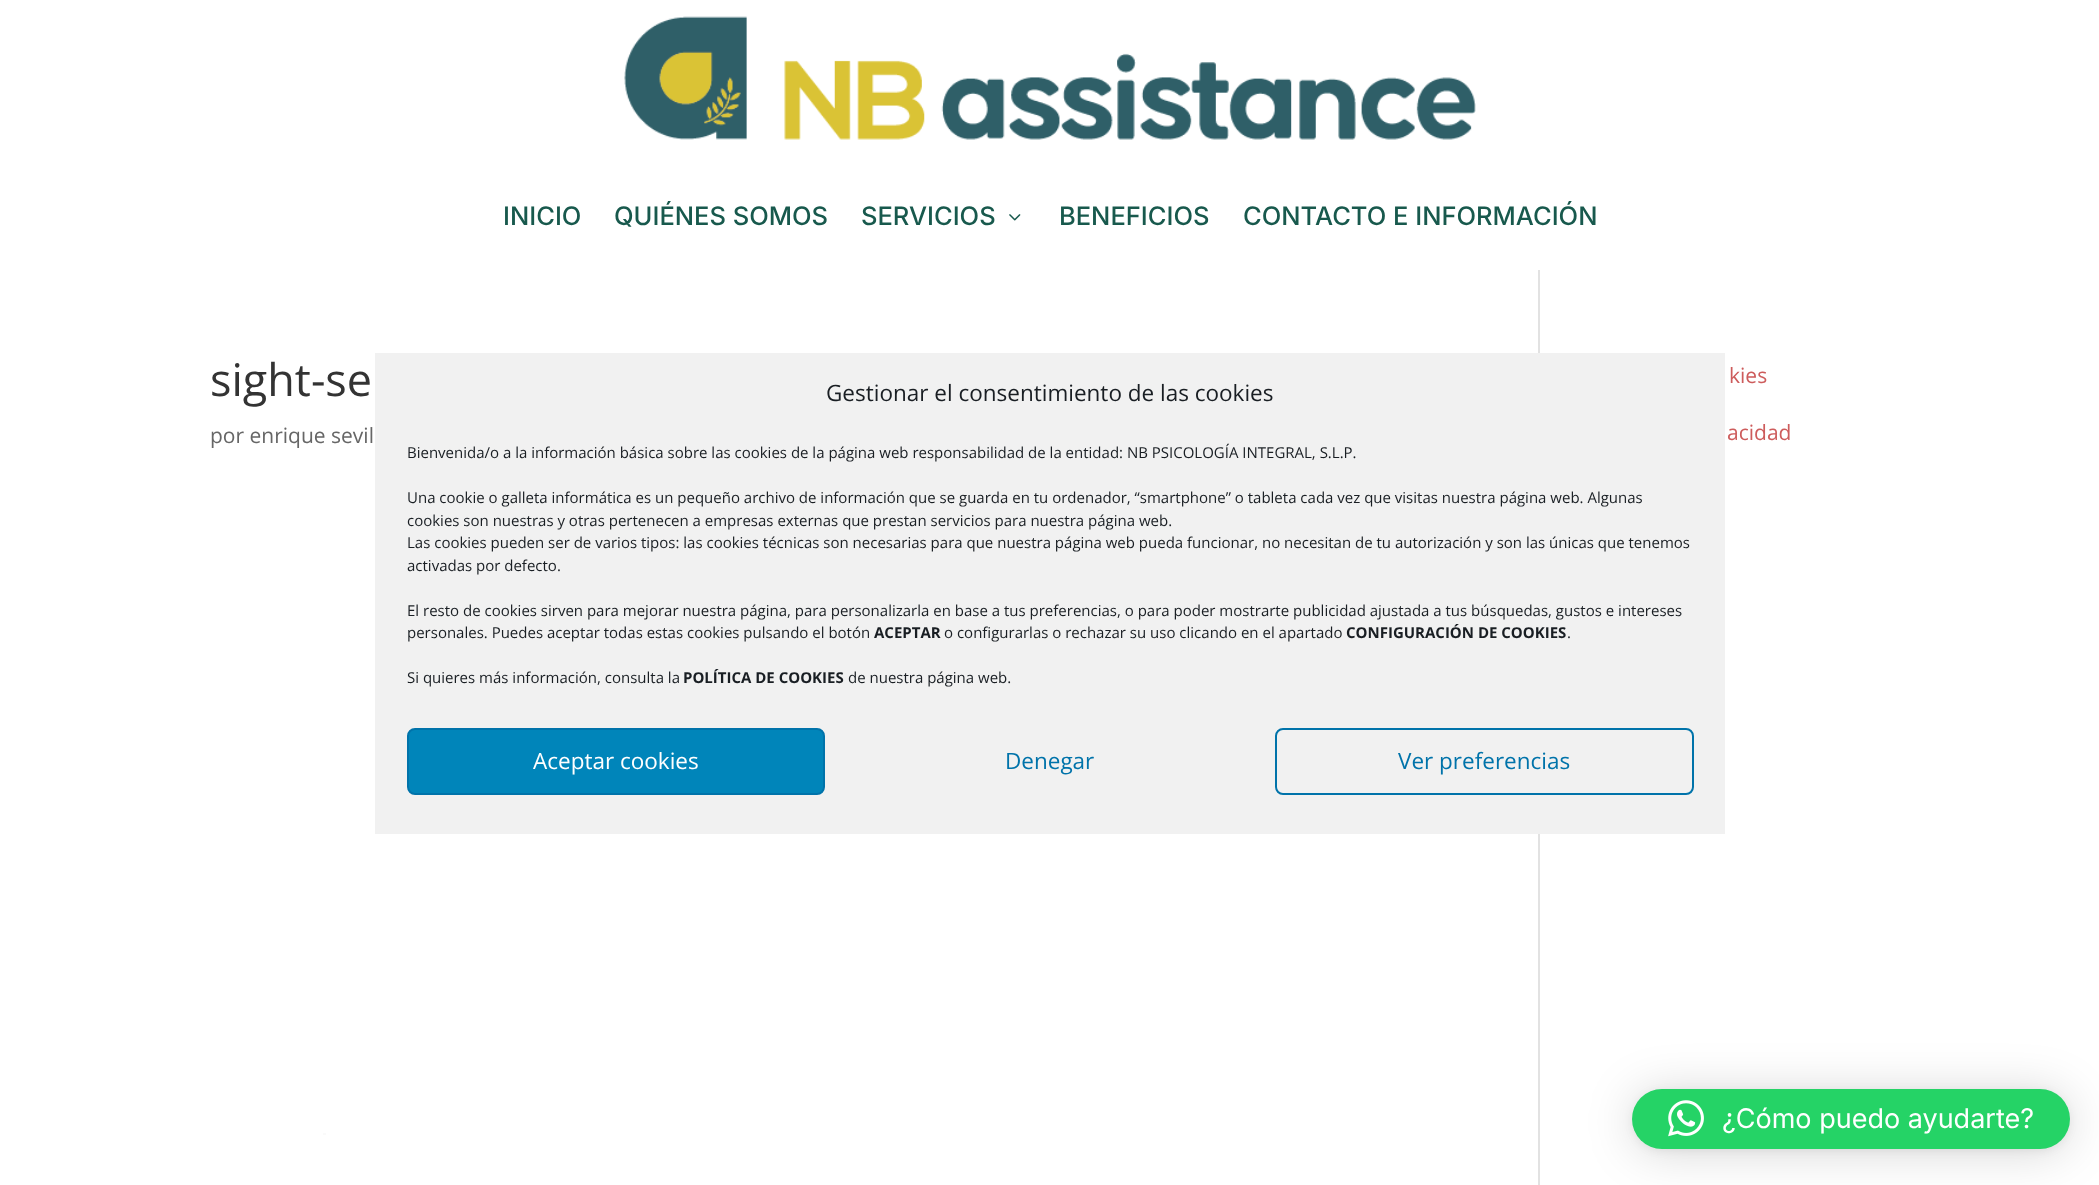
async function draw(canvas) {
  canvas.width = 2099
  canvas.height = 1185
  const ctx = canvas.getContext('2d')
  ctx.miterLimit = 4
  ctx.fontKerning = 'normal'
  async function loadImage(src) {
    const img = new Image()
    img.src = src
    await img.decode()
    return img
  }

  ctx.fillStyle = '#fff'
  ctx.fillRect(0, 0, 2099, 1185)
  ctx.drawImage(await loadImage('image0.png'), 624, 16, 852, 124)
  ctx.font = '500 25.5px Inter'
  ctx.fillStyle = '#18594d'
  ctx.fillText('INICIO', 503, 225)
  ctx.fillText('QUIÉNES SOMOS', 614, 225)
  ctx.fillText('SERVICIOS', 861, 225)
  ctx.drawImage(await loadImage('image1.png'), 1009, 214, 12, 7)
  ctx.fillText('BENEFICIOS', 1059, 225)
  ctx.fillText('CONTACTO E INFORMACIÓN', 1243, 225)
  ctx.fillStyle = '#e2e2e2'
  ctx.fillRect(1538, 270, 2, 915)
  ctx.font = '45px Open Sans'
  ctx.fillStyle = '#333'
  ctx.fillText('sight-se', 210, 396)
  ctx.font = '21px Open Sans'
  ctx.fillStyle = '#666'
  ctx.fillText('por enrique sevil', 210, 443)
  ctx.fillStyle = '#fafafa'
  ctx.fillRect(323, 1133, 3, 2)
  ctx.fillStyle = '#cd5c5c'
  ctx.fillText('kies', 1729, 383)
  ctx.fillText('acidad', 1727, 440)
  ctx.fillStyle = '#f1f1f1'
  ctx.fillRect(375, 353, 1350, 481)
  ctx.font = '22.5px Open Sans'
  ctx.fillStyle = '#191e23'
  ctx.fillText('Gestionar el consentimiento de las cookies', 826, 401)
  ctx.font = '15px Open Sans'
  ctx.fillText('Bienvenida/o a la información básica sobre las cookies de la página web responsabilidad de la entidad: NB PSICOLOGÍA INTEGRAL, S.L.P.', 407, 458)
  ctx.fillText('Una cookie o galleta informática es un pequeño archivo de información que se guarda en tu ordenador, “smartphone” o tableta cada vez que visitas nuestra página web. Algunas', 407, 503)
  ctx.fillText('cookies son nuestras y otras pertenecen a empresas externas que prestan servicios para nuestra página web.', 407, 526)
  ctx.fillText('Las cookies pueden ser de varios tipos: las cookies técnicas son necesarias para que nuestra página web pueda funcionar, no necesitan de tu autorización y son las únicas que tenemos', 407, 548)
  ctx.fillText('activadas por defecto.', 407, 571)
  ctx.fillText('El resto de cookies sirven para mejorar nuestra página, para personalizarla en base a tus preferencias, o para poder mostrarte publicidad ajustada a tus búsquedas, gustos e intereses', 407, 616)
  ctx.fillText('personales. Puedes aceptar todas estas cookies pulsando el botón', 407, 638)
  ctx.font = 'bold 15px Open Sans'
  ctx.fillText('ACEPTAR', 874, 638)
  ctx.font = '15px Open Sans'
  ctx.fillText('o configurarlas o rechazar su uso clicando en el apartado', 944, 638)
  ctx.font = 'bold 15px Open Sans'
  ctx.fillText('CONFIGURACIÓN DE COOKIES', 1346, 638)
  ctx.font = '15px Open Sans'
  ctx.fillText('.', 1567, 638)
  ctx.fillText('Si quieres más información, consulta la', 407, 683)
  ctx.font = 'bold 15px Open Sans'
  ctx.fillText('POLÍTICA DE COOKIES', 683, 683)
  ctx.font = '15px Open Sans'
  ctx.fillText('de nuestra página web.', 848, 683)
  ctx.fillStyle = '#0085ba'
  ctx.beginPath()
  ctx.roundRect(408, 729, 416, 65, 7)
  ctx.fill()
  ctx.strokeStyle = '#0073aa'
  ctx.lineWidth = 2
  ctx.stroke()
  ctx.font = '22.5px Open Sans'
  ctx.fillStyle = '#fff'
  ctx.fillText('Aceptar cookies', 533, 769)
  ctx.fillStyle = '#0073aa'
  ctx.fillText('Denegar', 1005, 769)
  ctx.beginPath()
  ctx.roundRect(1276, 729, 417, 65, 7)
  ctx.stroke()
  ctx.fillText('Ver preferencias', 1398, 769)
  ctx.fillStyle = '#00000029'
  ctx.filter = 'blur(24px)'
  ctx.beginPath()
  ctx.roundRect(1632, 1092, 438, 60, 30)
  ctx.fill()
  ctx.filter = 'none'
  ctx.fillStyle = '#0000000f'
  ctx.filter = 'blur(4.5px)'
  ctx.beginPath()
  ctx.roundRect(1632, 1091, 438, 60, 30)
  ctx.fill()
  ctx.filter = 'none'
  ctx.fillStyle = '#25d366'
  ctx.beginPath()
  ctx.roundRect(1632, 1089, 438, 60, 30)
  ctx.fill()
  ctx.drawImage(await loadImage('image2.png'), 1668, 1100, 36, 37)
  ctx.font = '27px Inter'
  ctx.fillStyle = '#fff'
  ctx.fillText('¿Cómo puedo ayudarte?', 1722, 1128)
}

draw(document.querySelector('canvas'))
